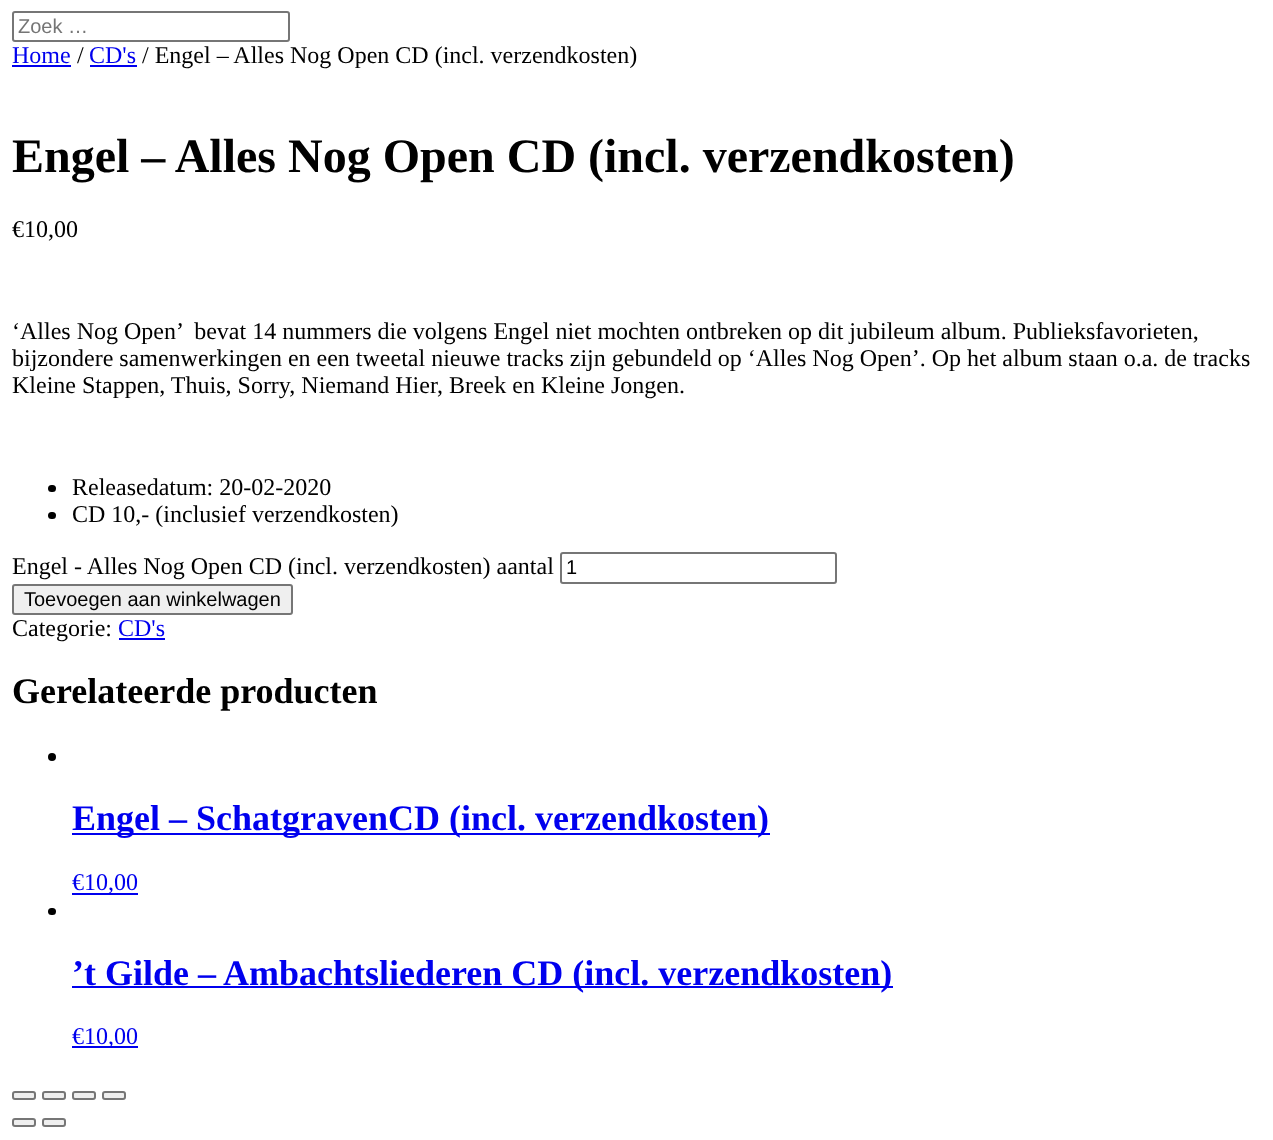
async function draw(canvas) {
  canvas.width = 1273
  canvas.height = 1140
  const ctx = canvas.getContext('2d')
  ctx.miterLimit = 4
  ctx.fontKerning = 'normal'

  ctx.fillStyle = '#fff'
  ctx.fillRect(0, 0, 1273, 1140)
  ctx.beginPath()
  ctx.roundRect(13, 12, 276, 29, 2)
  ctx.strokeStyle = '#767676'
  ctx.lineWidth = 2
  ctx.stroke()
  ctx.font = '20px Liberation Sans'
  ctx.fillStyle = '#757575'
  ctx.fillText('Zoek …', 18, 33)
  ctx.font = '24px Liberation Serif'
  ctx.fillStyle = '#00e'
  ctx.fillText('Home', 12, 63)
  ctx.fillRect(12, 65, 59, 2)
  ctx.fillStyle = '#000'
  ctx.fillText('/', 77, 63)
  ctx.fillStyle = '#00e'
  ctx.fillText('CD\'s', 89, 63)
  ctx.fillRect(90, 65, 47, 2)
  ctx.fillStyle = '#000'
  ctx.fillText('/ Engel – Alles Nog Open CD (incl. verzendkosten)', 142, 63)
  ctx.font = 'bold 48px Liberation Serif'
  ctx.fillText('Engel – Alles Nog Open CD (incl. verzendkosten)', 12, 172)
  ctx.font = '24px Liberation Serif'
  ctx.fillText('€10,00', 12, 237)
  ctx.fillText('‘Alles Nog Open’  bevat 14 nummers die volgens Engel niet mochten ontbreken op dit jubileum album. Publieksfavorieten,', 12, 339)
  ctx.fillText('bijzondere samenwerkingen en een tweetal nieuwe tracks zijn gebundeld op ‘Alles Nog Open’. Op het album staan o.a. de tracks', 12, 366)
  ctx.fillText('Kleine Stappen, Thuis, Sorry, Niemand Hier, Breek en Kleine Jongen.', 12, 393)
  ctx.beginPath()
  ctx.roundRect(48, 485, 8, 7, 3.5)
  ctx.fill()
  ctx.fillText('Releasedatum: 20-02-2020', 72, 495)
  ctx.beginPath()
  ctx.roundRect(48, 512, 8, 7, 3.5)
  ctx.fill()
  ctx.fillText('CD 10,- (inclusief verzendkosten)', 72, 522)
  ctx.fillText('Engel - Alles Nog Open CD (incl. verzendkosten) aantal', 12, 574)
  ctx.beginPath()
  ctx.roundRect(561, 553, 275, 30, 2)
  ctx.stroke()
  ctx.font = '20px Liberation Sans'
  ctx.fillText('1', 566, 574)
  ctx.fillStyle = '#efefef'
  ctx.beginPath()
  ctx.roundRect(13, 585, 279, 29, 2)
  ctx.fill()
  ctx.stroke()
  ctx.fillStyle = '#000'
  ctx.fillText('Toevoegen aan winkelwagen', 24, 606)
  ctx.font = '24px Liberation Serif'
  ctx.fillText('Categorie:', 12, 636)
  ctx.fillStyle = '#00e'
  ctx.fillText('CD\'s', 118, 636)
  ctx.fillRect(119, 638, 46, 2)
  ctx.font = 'bold 36px Liberation Serif'
  ctx.fillStyle = '#000'
  ctx.fillText('Gerelateerde producten', 12, 703)
  ctx.beginPath()
  ctx.arc(52, 757, 4, 0, 2 * Math.PI)
  ctx.fill()
  ctx.fillStyle = '#00e'
  ctx.fillRect(72, 833, 698, 2)
  ctx.fillText('Engel – SchatgravenCD (incl. verzendkosten)', 72, 830)
  ctx.fillRect(72, 893, 66, 2)
  ctx.font = '24px Liberation Serif'
  ctx.fillText('€10,00', 72, 890)
  ctx.fillStyle = '#000'
  ctx.beginPath()
  ctx.roundRect(48, 908, 8, 7, 3.5)
  ctx.fill()
  ctx.fillStyle = '#00e'
  ctx.fillRect(72, 986, 821, 2)
  ctx.font = 'bold 36px Liberation Serif'
  ctx.fillText('’t Gilde – Ambachtsliederen CD (incl. verzendkosten)', 72, 985)
  ctx.fillRect(72, 1046, 66, 2)
  ctx.font = '24px Liberation Serif'
  ctx.fillText('€10,00', 72, 1044)
  ctx.fillStyle = '#efefef'
  ctx.beginPath()
  ctx.roundRect(13, 1092, 22, 7, 2)
  ctx.fill()
  ctx.stroke()
  ctx.beginPath()
  ctx.roundRect(43, 1092, 22, 7, 2)
  ctx.fill()
  ctx.stroke()
  ctx.beginPath()
  ctx.roundRect(73, 1092, 22, 7, 2)
  ctx.fill()
  ctx.stroke()
  ctx.beginPath()
  ctx.roundRect(103, 1092, 22, 7, 2)
  ctx.fill()
  ctx.stroke()
  ctx.beginPath()
  ctx.roundRect(13, 1119, 22, 7, 2)
  ctx.fill()
  ctx.stroke()
  ctx.beginPath()
  ctx.roundRect(43, 1119, 22, 7, 2)
  ctx.fill()
  ctx.stroke()
}

draw(document.querySelector('canvas'))
